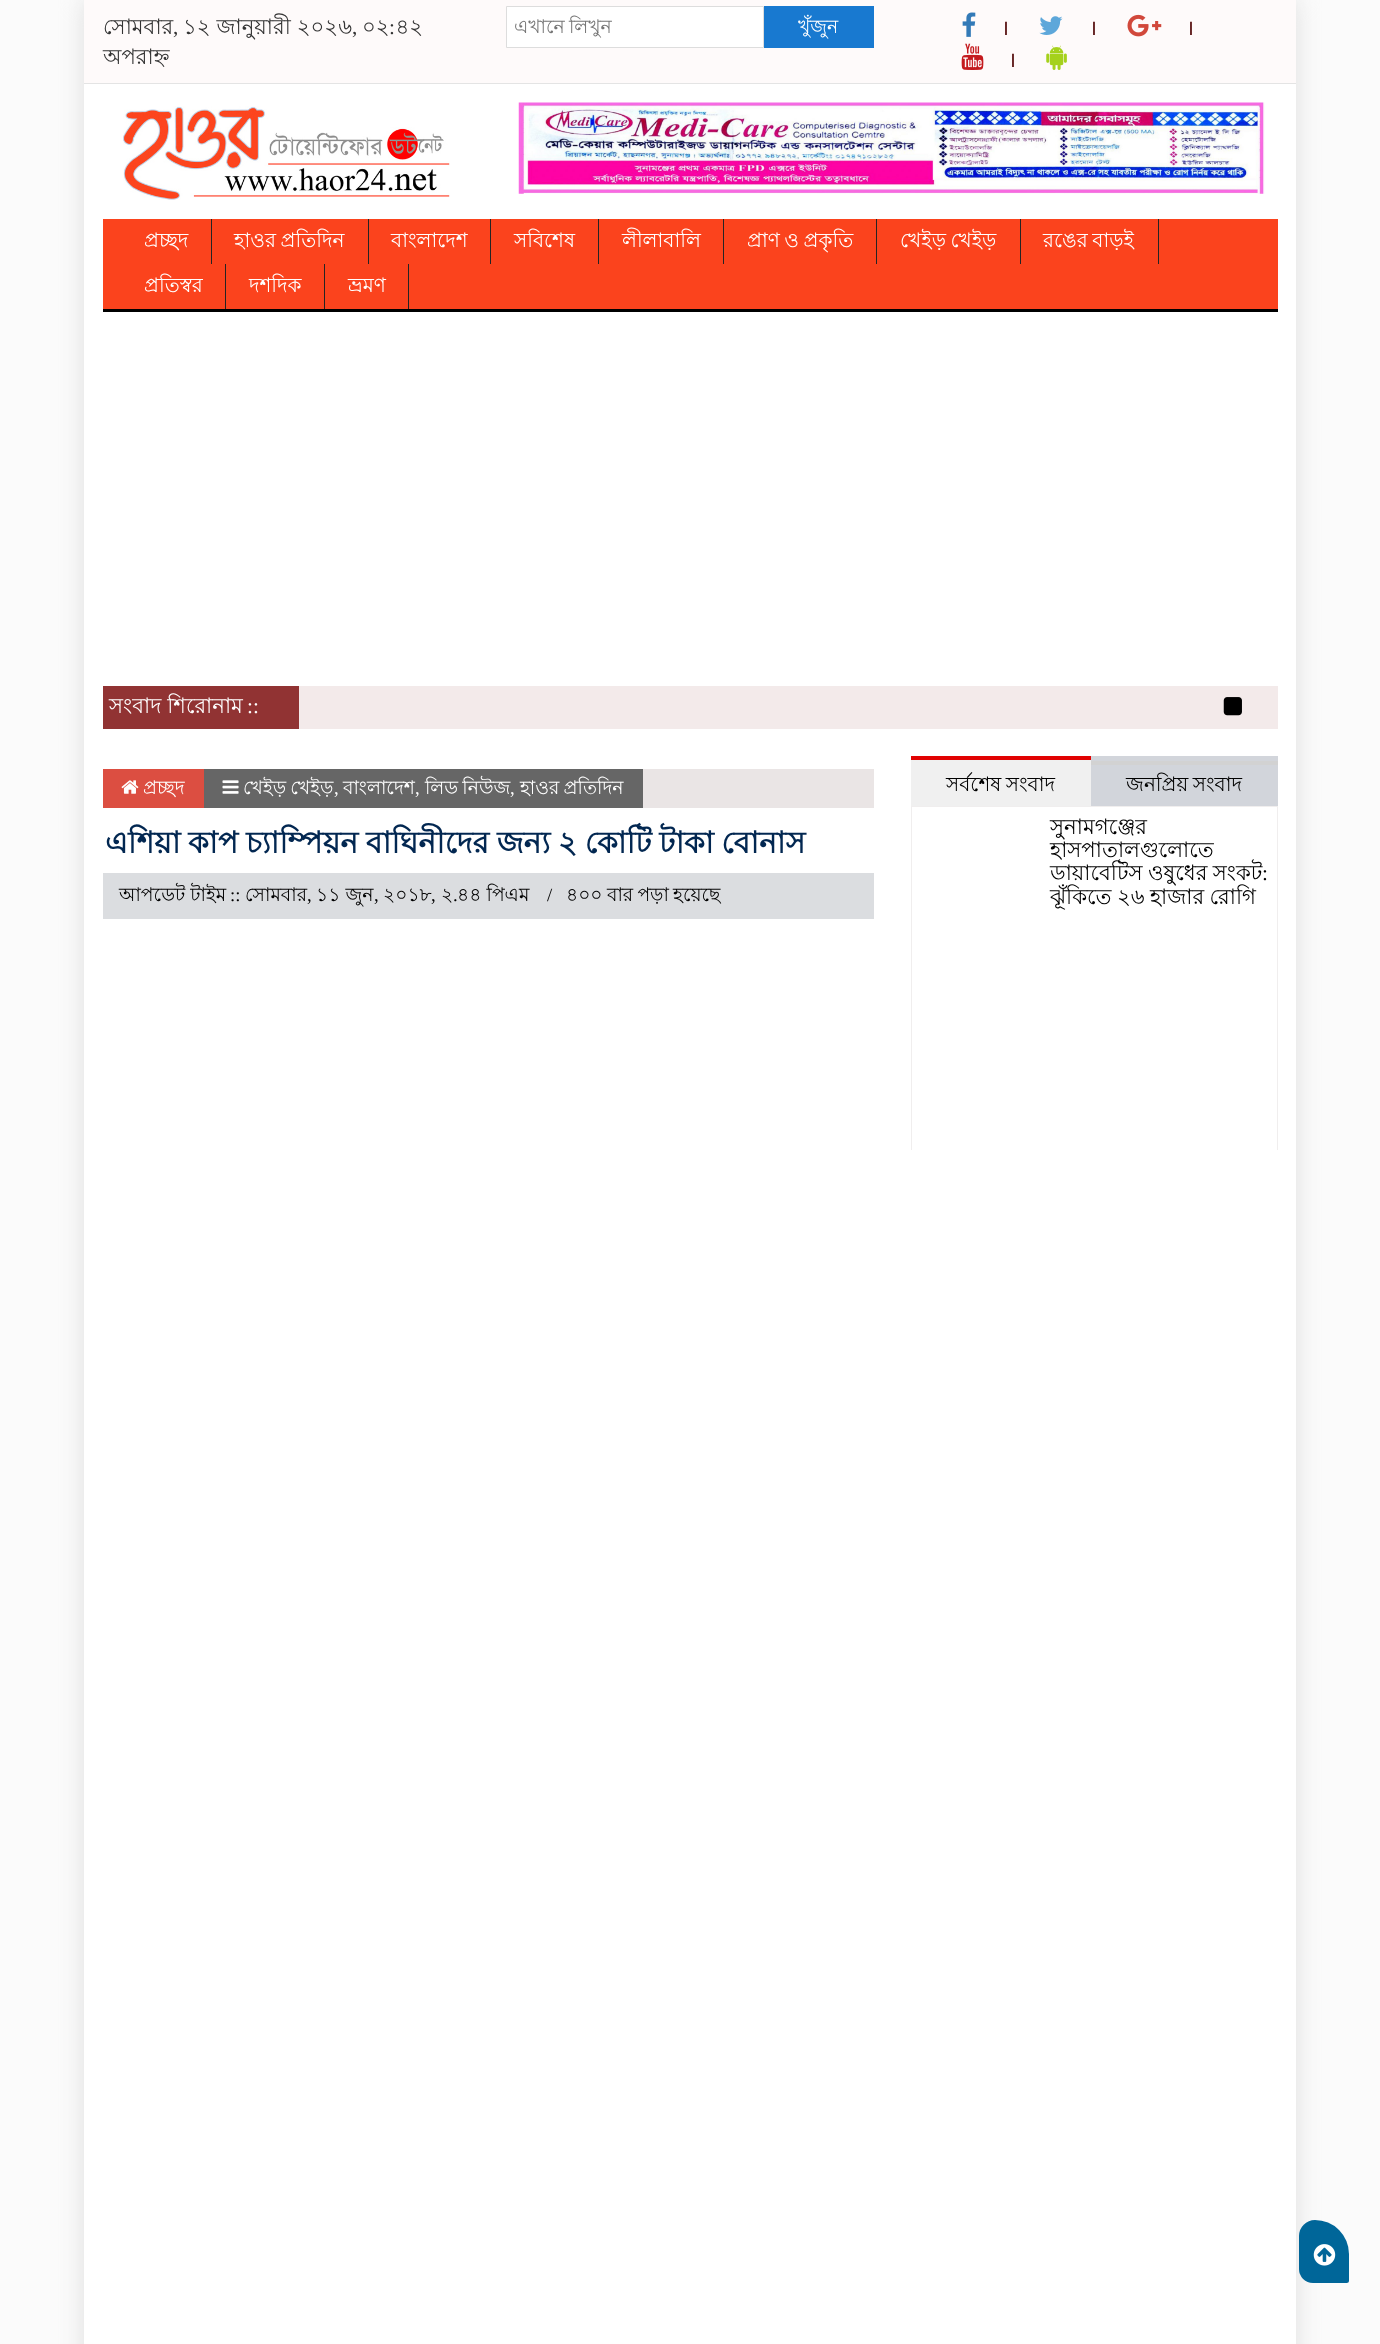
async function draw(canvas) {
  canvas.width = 1380
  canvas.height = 2344
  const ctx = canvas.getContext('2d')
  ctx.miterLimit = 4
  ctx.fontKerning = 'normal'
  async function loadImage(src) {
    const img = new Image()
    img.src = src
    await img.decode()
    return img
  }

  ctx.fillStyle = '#fbfbfb'
  ctx.fillRect(0, 0, 1380, 2344)
  ctx.fillStyle = '#ddd'
  ctx.filter = 'blur(12.5px)'
  ctx.beginPath()
  ctx.rect(84, 0, 1212, 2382)
  ctx.fill()
  ctx.filter = 'none'
  ctx.fillStyle = '#fff'
  ctx.fillRect(84, 84, 1212, 2260)
  ctx.fillStyle = '#fefafa'
  ctx.fillRect(84, 0, 1212, 83)
  ctx.fillStyle = '#e4e4e4'
  ctx.fillRect(84, 83, 1212, 1)
  ctx.font = '21.25px Lohit Bengali'
  ctx.fillStyle = '#333'
  ctx.fillText('সোমবার', 103, 34)
  ctx.fillText('১২ জানুয়ারী ২০২৬', 183, 34)
  ctx.fillText('০২ ৪২', 362, 34)
  ctx.font = '21.25px Liberation Serif'
  ctx.fillText(',', 173, 34)
  ctx.fillText(',', 352, 34)
  ctx.fillText(':', 389, 34)
  ctx.font = '21.25px Lohit Bengali'
  ctx.fillText('অপরাহ্ন', 103, 64)
  ctx.fillStyle = '#fff'
  ctx.beginPath()
  ctx.rect(506.5, 6.5, 257, 41)
  ctx.fill()
  ctx.strokeStyle = '#ddd'
  ctx.stroke()
  ctx.wordSpacing = '-1px'
  ctx.font = '18.75px Lohit Bengali'
  ctx.fillStyle = '#757575'
  ctx.fillText('এখানে লিখুন', 514, 33)
  ctx.fillStyle = '#1879d0'
  ctx.fillRect(764, 6, 110, 42)
  ctx.wordSpacing = '0px'
  ctx.fillStyle = '#fff'
  ctx.fillText('খুঁজুন', 798, 33)
  ctx.drawImage(await loadImage('image0.png'), 962, 12, 14, 25)
  ctx.font = '21.25px Noto Sans'
  ctx.fillStyle = '#4d0202'
  ctx.fillText('।', 1001, 35)
  ctx.drawImage(await loadImage('image1.png'), 1039, 16, 24, 19)
  ctx.fillText('।', 1089, 35)
  ctx.drawImage(await loadImage('image2.png'), 1127, 14, 35, 23)
  ctx.fillText('।', 1186, 35)
  ctx.drawImage(await loadImage('image3.png'), 961, 43, 23, 27)
  ctx.fillText('।', 1008, 67)
  ctx.drawImage(await loadImage('image4.png'), 1046, 45, 21, 25)
  ctx.drawImage(await loadImage('image5.png'), 123, 106, 327, 94)
  ctx.drawImage(await loadImage('image6.png'), 518, 102, 747, 92)
  ctx.fillStyle = '#fb431d'
  ctx.fillRect(103, 219, 1175, 90)
  ctx.fillStyle = '#000'
  ctx.fillRect(103, 309, 1175, 3)
  ctx.fillStyle = '#242424'
  ctx.fillRect(211, 219, 1, 45)
  ctx.font = '20px Lohit Bengali'
  ctx.fillStyle = '#fff'
  ctx.fillText('প্রচ্ছদ', 144, 247)
  ctx.fillStyle = '#242424'
  ctx.fillRect(368, 219, 1, 45)
  ctx.wordSpacing = '-1px'
  ctx.fillStyle = '#fff'
  ctx.fillText('হাওর প্রতিদিন', 234, 247)
  ctx.fillStyle = '#242424'
  ctx.fillRect(490, 219, 1, 45)
  ctx.wordSpacing = '0px'
  ctx.fillStyle = '#fff'
  ctx.fillText('বাংলাদেশ', 391, 247)
  ctx.fillStyle = '#242424'
  ctx.fillRect(598, 219, 1, 45)
  ctx.fillStyle = '#fff'
  ctx.fillText('সবিশেষ', 514, 247)
  ctx.fillStyle = '#242424'
  ctx.fillRect(723, 219, 1, 45)
  ctx.fillStyle = '#fff'
  ctx.fillText('লীলাবালি', 622, 247)
  ctx.fillStyle = '#242424'
  ctx.fillRect(876, 219, 1, 45)
  ctx.wordSpacing = '-1px'
  ctx.fillStyle = '#fff'
  ctx.fillText('প্রাণ ও প্রকৃতি', 747, 247)
  ctx.fillStyle = '#242424'
  ctx.fillRect(1020, 219, 1, 45)
  ctx.fillStyle = '#fff'
  ctx.fillText('খেইড় খেইড়', 900, 247)
  ctx.fillStyle = '#242424'
  ctx.fillRect(1158, 219, 1, 45)
  ctx.fillStyle = '#fff'
  ctx.fillText('রঙের বাড়ই', 1043, 247)
  ctx.fillStyle = '#242424'
  ctx.fillRect(225, 264, 1, 45)
  ctx.wordSpacing = '0px'
  ctx.fillStyle = '#fff'
  ctx.fillText('প্রতিস্বর', 144, 292)
  ctx.fillStyle = '#242424'
  ctx.fillRect(324, 264, 1, 45)
  ctx.fillStyle = '#fff'
  ctx.fillText('দশদিক', 249, 292)
  ctx.fillStyle = '#242424'
  ctx.fillRect(408, 264, 1, 45)
  ctx.fillStyle = '#fff'
  ctx.fillText('ভ্রমণ', 348, 292)
  ctx.fillStyle = '#913333'
  ctx.fillRect(103, 686, 196, 43)
  ctx.font = '21.25px Lohit Bengali'
  ctx.fillStyle = '#fff'
  ctx.fillText('সংবাদ শিরোনাম', 109, 713)
  ctx.font = '21.25px Liberation Serif'
  ctx.fillText('::', 247, 713)
  ctx.fillStyle = '#f3eaea'
  ctx.fillRect(299, 686, 979, 43)
  ctx.drawImage(await loadImage('image7.png'), 1223, 697, 19, 19)
  ctx.fillStyle = '#eae5e5'
  ctx.fillRect(643, 769, 231, 39)
  ctx.fillStyle = '#dc4e41'
  ctx.fillRect(103, 769, 101, 39)
  ctx.drawImage(await loadImage('image8.png'), 121, 780, 18, 14)
  ctx.font = '18.75px Lohit Bengali'
  ctx.fillStyle = '#fff'
  ctx.fillText('প্রচ্ছদ', 143, 794)
  ctx.fillStyle = '#666'
  ctx.fillRect(204, 769, 439, 39)
  ctx.drawImage(await loadImage('image9.png'), 222, 780, 17, 14)
  ctx.wordSpacing = '-1px'
  ctx.fillStyle = '#fff'
  ctx.fillText('খেইড় খেইড়', 243, 794)
  ctx.wordSpacing = '0px'
  ctx.font = '18.75px Liberation Serif'
  ctx.fillText(',', 334, 794)
  ctx.font = '18.75px Lohit Bengali'
  ctx.fillText('বাংলাদেশ', 343, 794)
  ctx.font = '18.75px Liberation Serif'
  ctx.fillText(',', 415, 794)
  ctx.wordSpacing = '-1px'
  ctx.font = '18.75px Lohit Bengali'
  ctx.fillText('লিড নিউজ', 425, 794)
  ctx.wordSpacing = '0px'
  ctx.font = '18.75px Liberation Serif'
  ctx.fillText(',', 510, 794)
  ctx.wordSpacing = '-1px'
  ctx.font = '18.75px Lohit Bengali'
  ctx.fillText('হাওর প্রতিদিন', 520, 794)
  ctx.wordSpacing = '-0.75px'
  ctx.font = 'bold 30px Lohit Bengali'
  ctx.fillStyle = '#022751'
  ctx.fillText('এশিয়া কাপ চ্যাম্পিয়ন বাঘিনীদের জন্য ২ কোটি টাকা বোনাস', 105, 853)
  ctx.fillStyle = '#dbdde0'
  ctx.fillRect(103, 873, 771, 46)
  ctx.wordSpacing = '0px'
  ctx.font = '18.75px Lohit Bengali'
  ctx.fillStyle = '#000'
  ctx.fillText('আপডেট টাইম', 119, 901)
  ctx.font = '18.75px Liberation Serif'
  ctx.fillText('::', 230, 901)
  ctx.font = '18.75px Lohit Bengali'
  ctx.fillText('সোমবার', 245, 901)
  ctx.font = '18.75px Liberation Serif'
  ctx.fillText(',', 307, 901)
  ctx.font = '18.75px Lohit Bengali'
  ctx.fillText('১১ জুন', 316, 901)
  ctx.font = '18.75px Liberation Serif'
  ctx.fillText(',', 374, 901)
  ctx.font = '18.75px Lohit Bengali'
  ctx.fillText('২০১৮', 383, 901)
  ctx.font = '18.75px Liberation Serif'
  ctx.fillText(',', 431, 901)
  ctx.font = '18.75px Lohit Bengali'
  ctx.fillText('২', 441, 901)
  ctx.font = '18.75px Liberation Serif'
  ctx.fillText('.', 453, 901)
  ctx.font = '18.75px Lohit Bengali'
  ctx.fillText('৪৪ পিএম', 457, 901)
  ctx.font = '18.75px Liberation Serif'
  ctx.fillText('/', 547, 901)
  ctx.font = '18.75px Lohit Bengali'
  ctx.fillText('৪০০', 566, 901)
  ctx.wordSpacing = '-1px'
  ctx.fillText('বার পড়া হয়েছে', 607, 901)
  ctx.fillStyle = '#d2d5db'
  ctx.fillRect(1091, 756, 187, 50)
  ctx.fillStyle = '#f0f0f0'
  ctx.fillRect(911, 760, 180, 46)
  ctx.fillStyle = '#e10202'
  ctx.fillRect(911, 756, 180, 4)
  ctx.font = '20px Lohit Bengali'
  ctx.fillStyle = '#000'
  ctx.fillText('সর্বশেষ সংবাদ', 946, 791)
  ctx.fillStyle = '#d2d2d2'
  ctx.fillRect(1091, 761, 187, 4)
  ctx.fillStyle = '#000'
  ctx.fillText('জনপ্রিয় সংবাদ', 1126, 791)
  ctx.save()
  ctx.beginPath()
  ctx.rect(911, 806, 367, 344)
  ctx.clip()
  ctx.strokeStyle = '#f0eeee'
  ctx.strokeRect(911.5, 806.5, 366, 831)
  ctx.restore()
  ctx.wordSpacing = '0px'
  ctx.font = '21.25px Lohit Bengali'
  ctx.fillText('সুনামগঞ্জের', 1050, 834)
  ctx.fillText('হাসপাতালগুলোতে', 1050, 857)
  ctx.wordSpacing = '-0.5px'
  ctx.fillText('ডায়াবেটিস ওষুধের সংকট', 1050, 880)
  ctx.wordSpacing = '0px'
  ctx.font = '21.25px Liberation Serif'
  ctx.fillText(':', 1262, 880)
  ctx.wordSpacing = '-0.5px'
  ctx.font = '21.25px Lohit Bengali'
  ctx.fillText('ঝূঁকিতে ২৬ হাজার রোগি', 1050, 904)
  ctx.fillStyle = '#069'
  ctx.beginPath()
  ctx.roundRect(1299, 2220, 50, 63, [16, 34, 2.5, 14])
  ctx.fill()
  ctx.drawImage(await loadImage('image10.png'), 1313, 2244, 23, 22)
}

draw(document.querySelector('canvas'))
